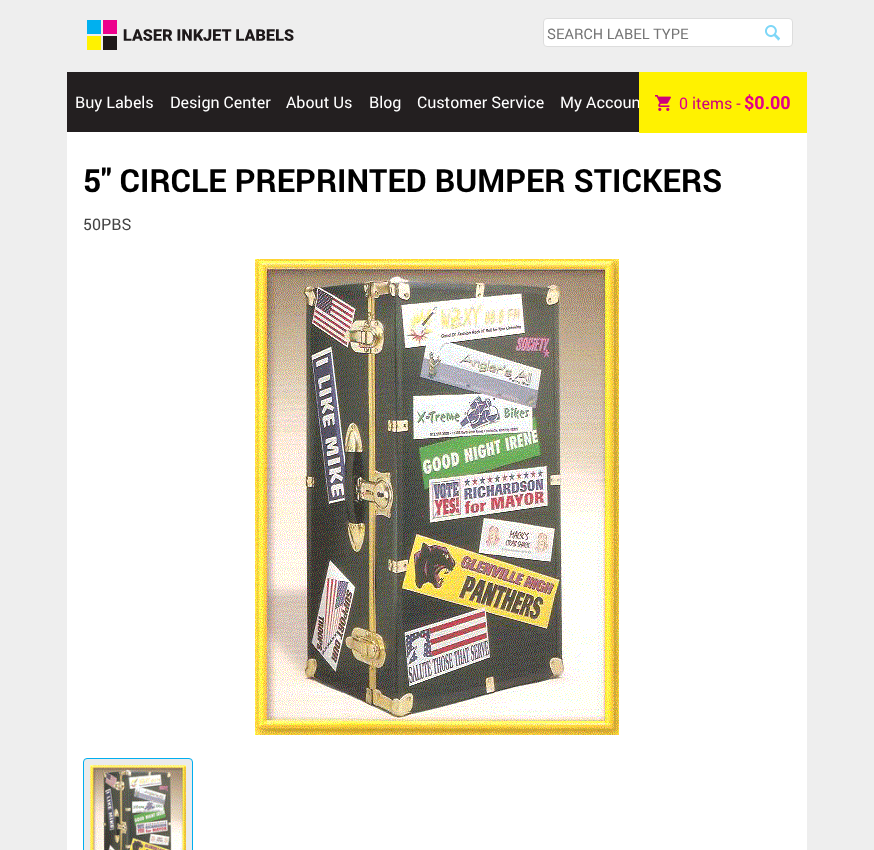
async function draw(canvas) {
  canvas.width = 874
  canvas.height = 850
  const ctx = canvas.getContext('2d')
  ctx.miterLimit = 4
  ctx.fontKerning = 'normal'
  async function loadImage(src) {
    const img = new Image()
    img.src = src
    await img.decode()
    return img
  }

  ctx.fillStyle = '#eee'
  ctx.fillRect(0, 0, 874, 850)
  ctx.drawImage(await loadImage('image0.png'), 87, 20, 207, 30)
  ctx.fillStyle = '#fff'
  ctx.beginPath()
  ctx.roundRect(543.5, 18.5, 249, 28, 3.5)
  ctx.fill()
  ctx.strokeStyle = '#ddd'
  ctx.stroke()
  ctx.font = '14.5px Roboto'
  ctx.fillStyle = '#757575'
  ctx.fillText('SEARCH LABEL TYPE', 547, 39)
  ctx.drawImage(await loadImage('image1.png'), 765, 25, 15, 16)
  ctx.fillStyle = '#231f20'
  ctx.fillRect(67, 72, 572, 60)
  ctx.font = '16px Roboto'
  ctx.fillStyle = '#fff'
  ctx.fillText('Buy Labels', 75, 108)
  ctx.fillText('Design Center', 170, 108)
  ctx.fillText('About Us', 286, 108)
  ctx.fillText('Blog', 369, 108)
  ctx.fillText('Customer Service', 417, 108)
  ctx.fillText('My Accoun', 560, 108)
  ctx.fillRect(67, 132, 740, 718)
  ctx.fillStyle = '#fff200'
  ctx.fillRect(639, 72, 168, 61)
  ctx.drawImage(await loadImage('image2.png'), 655, 95, 16, 16)
  ctx.fillStyle = '#e30088'
  ctx.fillText('0', 679, 109)
  ctx.fillStyle = '#cf007c'
  ctx.fillText('items -', 692, 109)
  ctx.font = 'bold 18px Roboto'
  ctx.fillStyle = '#e30088'
  ctx.fillText('$0.00', 744, 109)
  ctx.font = 'bold 32px Roboto'
  ctx.fillStyle = '#000'
  ctx.fillText('5" CIRCLE PREPRINTED BUMPER STICKERS', 83, 192)
  ctx.font = '16px Roboto'
  ctx.fillStyle = '#444'
  ctx.fillText('50PBS', 83, 230)
  ctx.drawImage(await loadImage('image3.png'), 255, 259, 364, 476)
  ctx.fillStyle = '#ebebeb'
  ctx.beginPath()
  ctx.roundRect(83.5, 758.5, 109, 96, 3.5)
  ctx.fill()
  ctx.strokeStyle = '#00aeef'
  ctx.stroke()
  ctx.drawImage(await loadImage('image4.png'), 90, 765, 96, 85)
}

draw(document.querySelector('canvas'))
